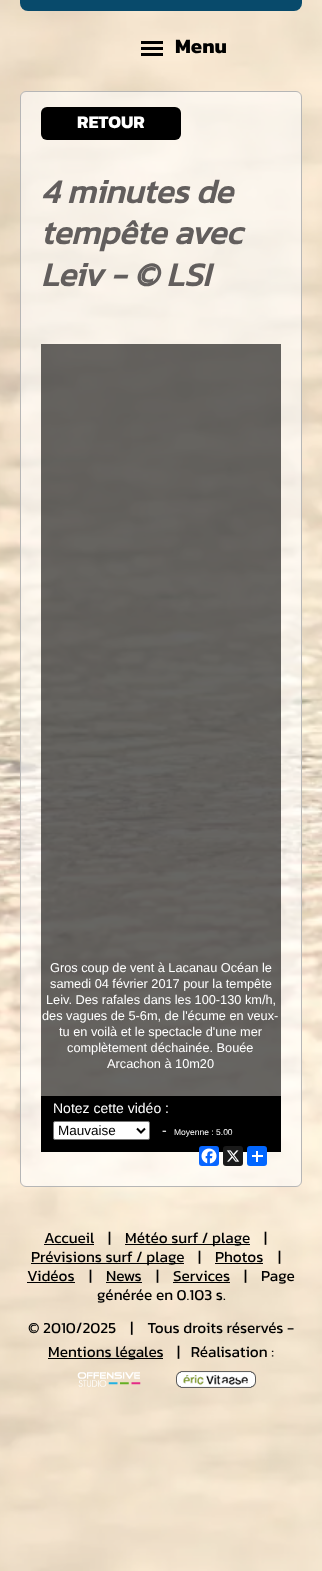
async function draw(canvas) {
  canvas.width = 322
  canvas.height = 1571
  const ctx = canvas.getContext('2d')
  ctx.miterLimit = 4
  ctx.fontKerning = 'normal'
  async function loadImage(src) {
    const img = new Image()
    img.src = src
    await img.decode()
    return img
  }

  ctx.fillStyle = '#fff'
  ctx.fillRect(0, 0, 322, 1571)
  ctx.drawImage(await loadImage('image0.png'), 0, 0, 322, 1571)
  ctx.fillStyle = '#ffffff91'
  ctx.fillRect(0, 0, 322, 1197)
  ctx.fillStyle = '#084a6b'
  ctx.beginPath()
  ctx.roundRect(20, -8, 282, 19, 8)
  ctx.fill()
  ctx.fillStyle = '#000'
  ctx.fillRect(141, 41, 22, 3)
  ctx.font = 'bold 20.5px Kanit'
  ctx.fillText('Menu', 175, 53)
  ctx.fillRect(141, 47, 22, 3)
  ctx.fillRect(141, 53, 22, 3)
  ctx.fillStyle = '#ffffff99'
  ctx.beginPath()
  ctx.roundRect(20.5, 91.5, 281, 1095, 5.5)
  ctx.fill()
  ctx.strokeStyle = '#b6b6b6'
  ctx.stroke()
  ctx.fillStyle = '#000'
  ctx.beginPath()
  ctx.roundRect(41, 107, 140, 33, 6)
  ctx.fill()
  ctx.font = 'bold 18px Kanit'
  ctx.fillStyle = '#fff'
  ctx.fillText('RETOUR', 77, 128)
  ctx.font = 'italic bold 33.25px Kanit'
  ctx.fillStyle = '#625e5d'
  ctx.fillText('4 minutes de', 41, 203)
  ctx.fillText('tempête avec', 41, 244)
  ctx.fillText('Leiv - © LSI', 41, 286)
  ctx.fillStyle = '#00000099'
  ctx.fillRect(41, 344, 240, 604)
  ctx.fillRect(41, 948, 240, 148)
  ctx.font = '12.75px Liberation Sans'
  ctx.fillStyle = '#fff'
  ctx.fillText('Gros coup de vent à Lacanau Océan le', 50, 972)
  ctx.fillText('samedi 04 février 2017 pour la tempête', 50, 988)
  ctx.fillText('Leiv. Des rafales dans les 100-130 km/h,', 46, 1004)
  ctx.fillText('des vagues de 5-6m, de l\'écume en veux-', 42, 1020)
  ctx.fillText('tu en voilà et le spectacle d\'une mer', 59, 1036)
  ctx.fillText('complètement déchainée. Bouée', 67, 1052)
  ctx.fillText('Arcachon à 10m20', 107, 1068)
  ctx.fillStyle = '#000'
  ctx.fillRect(41, 1096, 240, 56)
  ctx.font = '14px Liberation Sans'
  ctx.fillStyle = '#fff'
  ctx.fillText('Notez cette vidéo :', 53, 1113)
  ctx.beginPath()
  ctx.roundRect(53.5, 1121.5, 96, 18, 1.5)
  ctx.fill()
  ctx.strokeStyle = '#767676'
  ctx.stroke()
  ctx.beginPath()
  ctx.moveTo(137, 1128.5)
  ctx.lineTo(141, 1132.5)
  ctx.lineTo(145, 1128.5)
  ctx.strokeStyle = '#000'
  ctx.lineWidth = 2
  ctx.stroke()
  ctx.font = '13.5px Liberation Sans'
  ctx.fillStyle = '#000'
  ctx.fillText('Mauvaise', 58, 1135)
  ctx.font = '14px Liberation Sans'
  ctx.fillStyle = '#fff'
  ctx.fillText('-', 162, 1135)
  ctx.font = '8.5px Liberation Sans'
  ctx.fillText('Moyenne : 5.00', 174, 1135)
  ctx.fillStyle = '#0866ff'
  ctx.beginPath()
  ctx.roundRect(199, 1146, 20, 20, 3)
  ctx.fill()
  ctx.drawImage(await loadImage('image1.png'), 201, 1148, 16, 16)
  ctx.fillStyle = '#1a1a1a'
  ctx.beginPath()
  ctx.roundRect(223, 1146, 20, 20, 3)
  ctx.fill()
  ctx.drawImage(await loadImage('image2.png'), 226, 1150, 14, 12)
  ctx.fillStyle = '#0166ff'
  ctx.beginPath()
  ctx.roundRect(247, 1146, 20, 20, 3)
  ctx.fill()
  ctx.fillStyle = '#fff'
  ctx.fillRect(256, 1151, 2, 11)
  ctx.fillRect(252, 1155, 11, 2)
  ctx.fillStyle = '#ffffff91'
  ctx.fillRect(0, 1197, 322, 374)
  ctx.font = '15.4px Kanit'
  ctx.fillStyle = '#000'
  ctx.fillText('Accueil', 44, 1243)
  ctx.fillRect(44, 1244, 50, 1)
  ctx.fillText('|', 108, 1243)
  ctx.fillRect(125, 1244, 125, 1)
  ctx.fillText('Météo surf / plage', 125, 1243)
  ctx.fillText('|', 264, 1243)
  ctx.fillRect(31, 1263, 153, 1)
  ctx.fillText('Prévisions surf / plage', 31, 1262)
  ctx.fillText('|', 198, 1262)
  ctx.fillText('Photos', 215, 1262)
  ctx.fillRect(215, 1263, 48, 1)
  ctx.fillText('|', 278, 1262)
  ctx.fillText('Vidéos', 27, 1281)
  ctx.fillRect(27, 1282, 48, 1)
  ctx.fillText('|', 89, 1281)
  ctx.fillText('News', 106, 1281)
  ctx.fillRect(106, 1282, 36, 1)
  ctx.fillText('|', 156, 1281)
  ctx.fillText('Services', 173, 1281)
  ctx.fillRect(173, 1282, 57, 1)
  ctx.fillText('|', 244, 1281)
  ctx.fillText('Page', 261, 1281)
  ctx.fillText('générée en 0.103 s.', 97, 1300)
  ctx.fillText('© 2010/2025    |    Tous droits réservés -', 28, 1333)
  ctx.fillRect(48, 1358, 115, 1)
  ctx.fillText('Mentions légales', 48, 1357)
  ctx.fillText('|   Réalisation :', 177, 1357)
  ctx.drawImage(await loadImage('image3.png'), 77, 1372, 64, 15)
  ctx.drawImage(await loadImage('image4.png'), 176, 1371, 80, 17)
}

draw(document.querySelector('canvas'))
